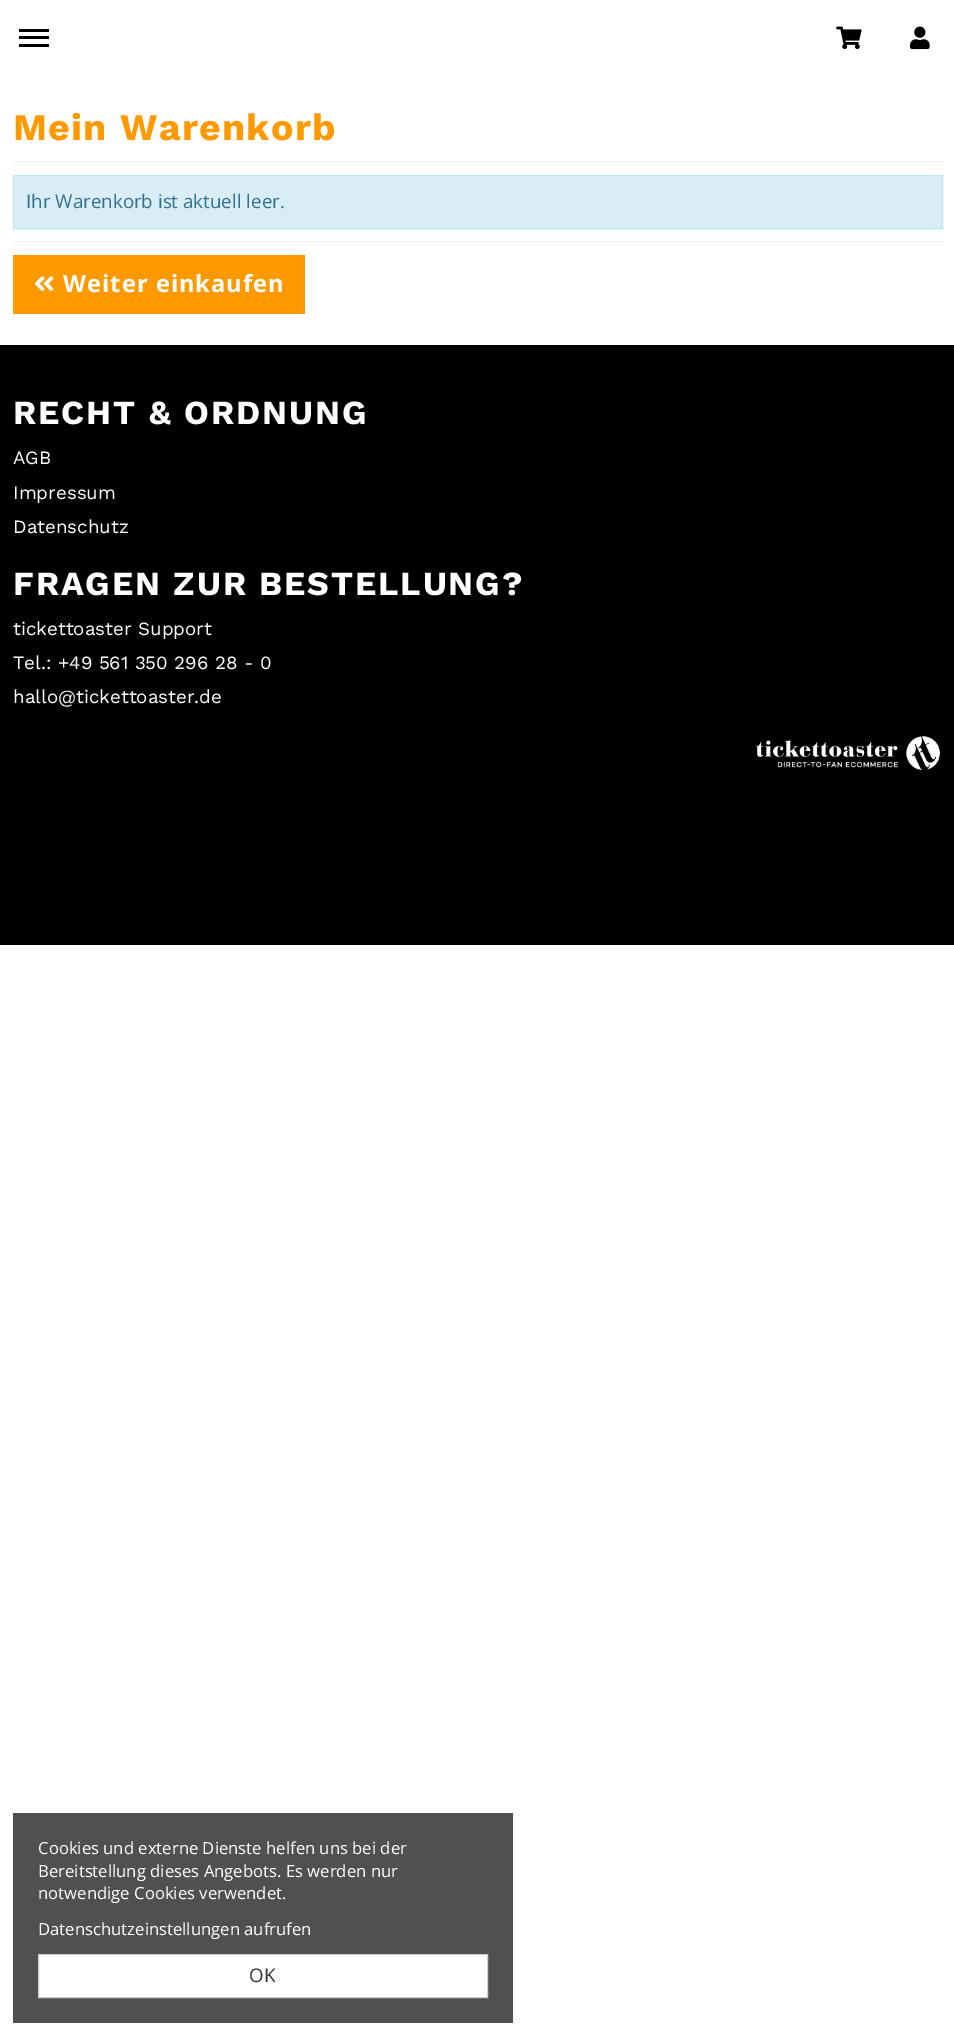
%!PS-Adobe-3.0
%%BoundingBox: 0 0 954 2035
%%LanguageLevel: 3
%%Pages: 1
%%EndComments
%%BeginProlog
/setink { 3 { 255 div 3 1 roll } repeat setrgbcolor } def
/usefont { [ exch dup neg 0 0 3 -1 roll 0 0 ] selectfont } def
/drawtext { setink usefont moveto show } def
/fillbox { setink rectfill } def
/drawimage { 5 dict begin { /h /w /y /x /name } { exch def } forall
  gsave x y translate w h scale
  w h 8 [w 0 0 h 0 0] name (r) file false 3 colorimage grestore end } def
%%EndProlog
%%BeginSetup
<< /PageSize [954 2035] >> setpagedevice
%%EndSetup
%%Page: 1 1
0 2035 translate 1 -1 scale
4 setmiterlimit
0 0 954 2035 255 255 255 fillbox
19 36 30 3 0 0 0 fillbox
19 29 30 3 0 0 0 fillbox
19 44 30 3 0 0 0 fillbox
(assets/img1.rgb) 836 26 26 23 drawimage
(assets/img2.rgb) 910 26 20 24 drawimage
/WorkSans-Bold 37.5 usefont
255 153 0 setink
13 140 moveto 1.25 0 (Mein Warenkorb) ashow
13 161 930 1 238 238 238 fillbox
217 237 247 setink
13.5 175.5 moveto 942.5 175.5 lineto 942.5 228.5 lineto 13.5 228.5 lineto closepath gsave fill grestore
188 232 241 setink
stroke
(Ihr Warenkorb ist aktuell leer.) 26 208 /OpenSans-Regular 18.75 49 112 143 drawtext
13 241 930 1 238 238 238 fillbox
13 255 292 59 255 153 0 fillbox
(assets/img3.rgb) 34 276 20 15 drawimage
/OpenSans-Bold 23.75 usefont
255 255 255 setink
63 292 moveto 1 0 (Weiter einkaufen) ashow
0 345 954 600 0 0 0 fillbox
/WorkSans-Bold 33.75 usefont
255 255 255 setink
13 424 moveto 1.9 0 (RECHT & ORDNUNG) ashow
(AGB) 13 464 /WorkSans-Regular 18.75 255 255 255 drawtext
(Impressum) 13 499 /WorkSans-Regular 18.75 255 255 255 drawtext
(Datenschutz) 13 533 /WorkSans-Regular 18.75 255 255 255 drawtext
/WorkSans-Bold 33.75 usefont
13 595 moveto 1.9 0 (FRAGEN ZUR BESTELLUNG?) ashow
(tickettoaster Support) 13 635 /WorkSans-Regular 18.75 255 255 255 drawtext
(Tel.: +49 561 350 296 28 - 0) 13 669 /WorkSans-Regular 18.75 255 255 255 drawtext
(hallo@tickettoaster.de) 13 703 /WorkSans-Regular 18.75 255 255 255 drawtext
(assets/img4.rgb) 756 736 184 34 drawimage
13 1813 500 210 80 80 80 fillbox
(Cookies und externe Dienste helfen uns bei der) 38 1854 /OpenSans-Regular 16.7 255 255 255 drawtext
(Bereitstellung dieses Angebots. Es werden nur) 38 1877 /OpenSans-Regular 16.7 255 255 255 drawtext
(notwendige Cookies verwendet.) 38 1899 /OpenSans-Regular 16.7 255 255 255 drawtext
(Datenschutzeinstellungen aufrufen) 38 1935 /OpenSans-Regular 16.7 255 255 255 drawtext
38.5 1954.5 moveto 487.5 1954.5 lineto 487.5 1997.5 lineto 38.5 1997.5 lineto closepath gsave fill grestore
204 204 204 setink
stroke
(OK) 249 1982 /OpenSans-Regular 18.75 51 51 51 drawtext
showpage
%%EOF
